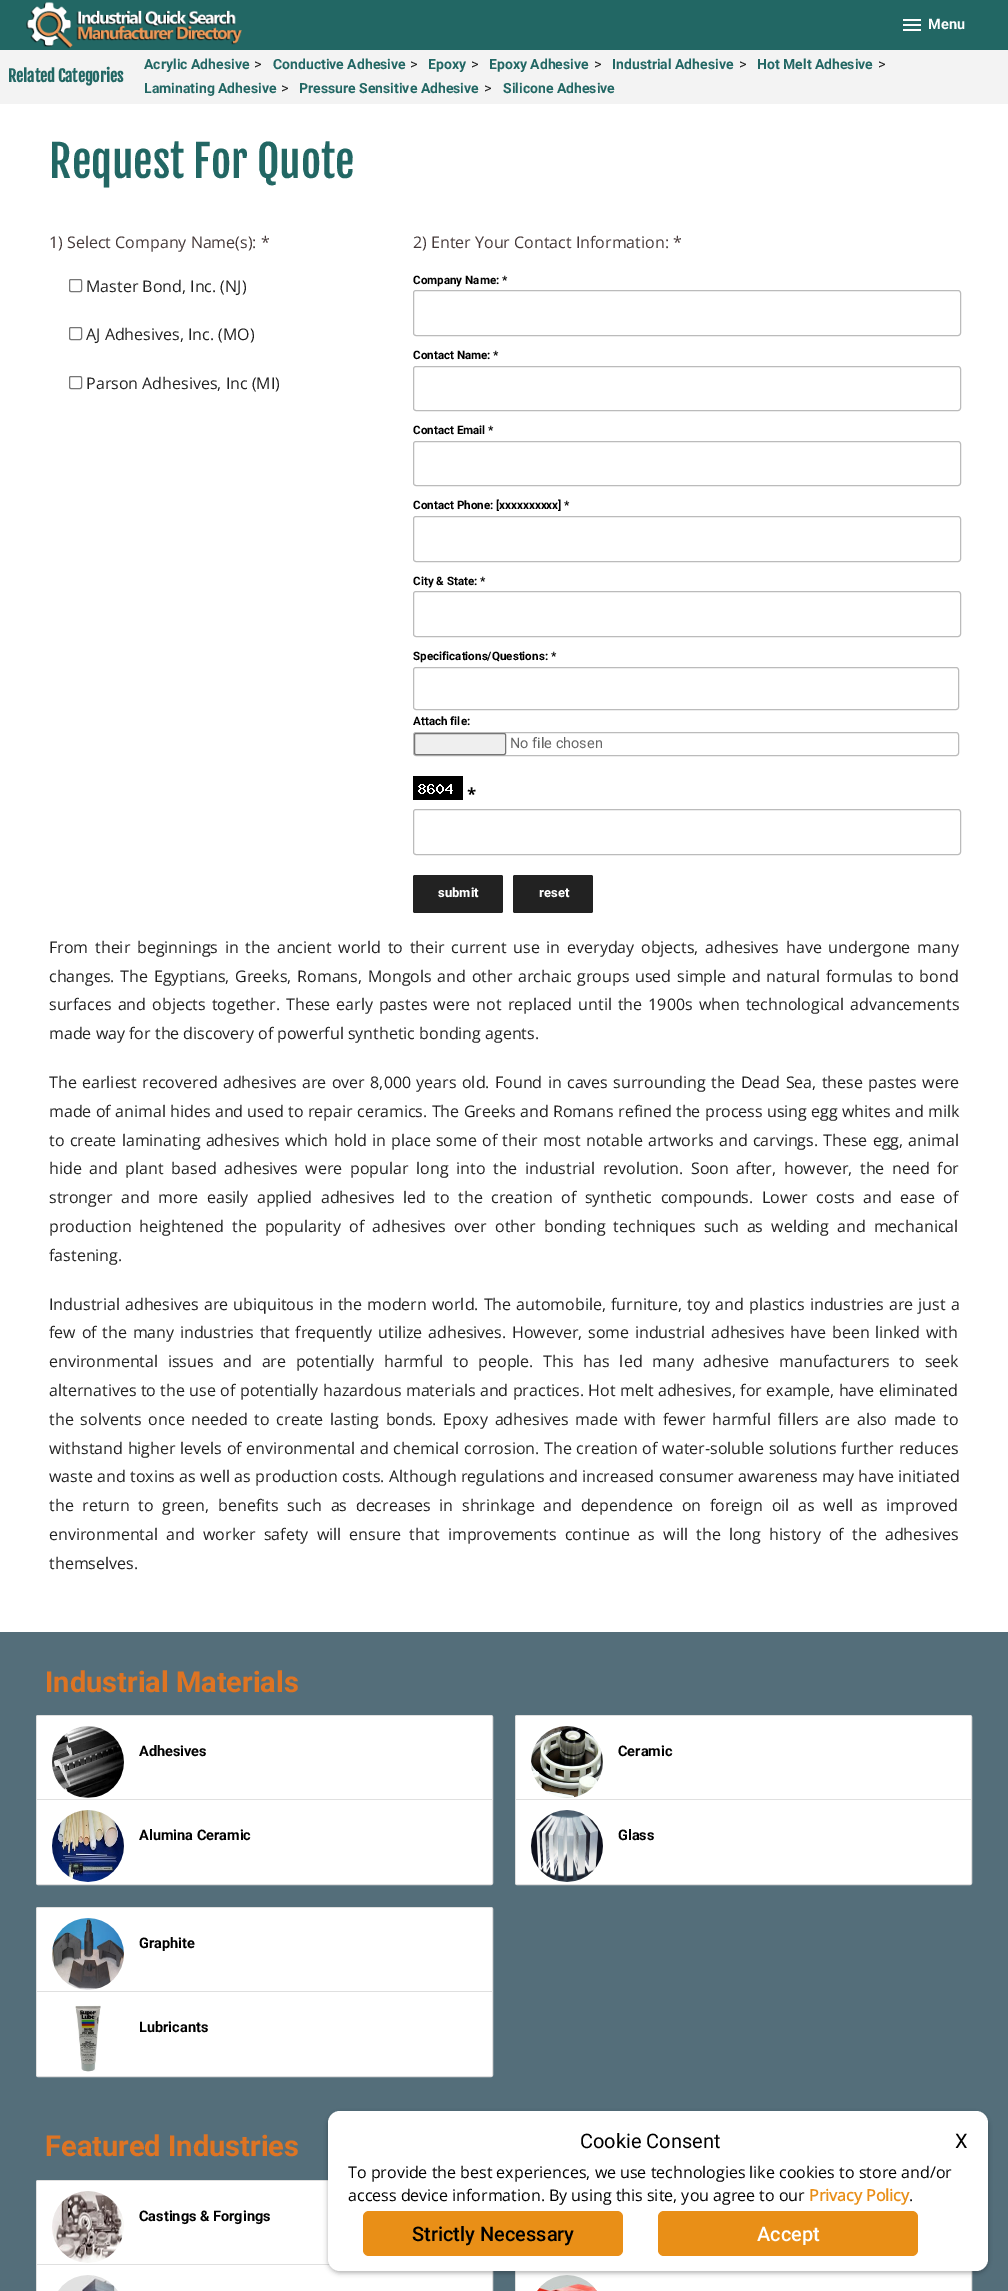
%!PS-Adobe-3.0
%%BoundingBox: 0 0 1008 2291
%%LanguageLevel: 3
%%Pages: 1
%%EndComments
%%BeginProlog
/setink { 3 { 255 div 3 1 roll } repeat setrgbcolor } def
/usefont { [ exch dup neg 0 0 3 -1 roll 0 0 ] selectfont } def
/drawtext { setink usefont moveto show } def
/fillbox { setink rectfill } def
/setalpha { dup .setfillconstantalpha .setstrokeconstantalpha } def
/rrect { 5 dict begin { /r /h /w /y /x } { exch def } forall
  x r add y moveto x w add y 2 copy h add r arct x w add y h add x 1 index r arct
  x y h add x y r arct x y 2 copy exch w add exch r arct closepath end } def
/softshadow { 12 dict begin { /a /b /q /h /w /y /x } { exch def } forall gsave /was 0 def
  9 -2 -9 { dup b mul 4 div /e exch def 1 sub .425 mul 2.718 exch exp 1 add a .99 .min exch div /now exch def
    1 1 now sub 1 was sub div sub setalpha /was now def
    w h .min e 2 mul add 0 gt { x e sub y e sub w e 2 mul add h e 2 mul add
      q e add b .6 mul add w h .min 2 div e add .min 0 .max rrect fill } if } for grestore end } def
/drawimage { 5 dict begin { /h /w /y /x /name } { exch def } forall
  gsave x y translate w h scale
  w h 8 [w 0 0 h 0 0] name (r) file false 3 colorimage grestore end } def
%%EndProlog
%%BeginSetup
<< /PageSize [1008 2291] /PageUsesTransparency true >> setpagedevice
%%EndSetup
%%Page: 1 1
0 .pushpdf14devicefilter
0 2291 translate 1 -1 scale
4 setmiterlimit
0 0 1008 2291 255 255 255 fillbox
0 0 1008 50 34 103 100 fillbox
(assets/img1.rgb) 26 2 216 47 drawimage
(assets/img2.rgb) 903 19 18 12 drawimage
(Menu) 928 29 /Roboto-Bold 14.5 255 255 255 drawtext
0 50 1008 54 243 243 243 fillbox
(Related Categories) 8 82 /FjallaOne-Bold 16 34 103 100 drawtext
(Acrylic Adhesive) 144 69 /Roboto-Bold 14 34 103 100 drawtext
(>) 254 69 /Roboto-Regular 14.5 33 33 33 drawtext
(Conductive Adhesive) 273 69 /Roboto-Bold 14 34 103 100 drawtext
(>) 410 69 /Roboto-Regular 14.5 33 33 33 drawtext
(Epoxy) 428 69 /Roboto-Bold 14 34 103 100 drawtext
(>) 471 69 /Roboto-Regular 14.5 33 33 33 drawtext
(Epoxy Adhesive) 489 69 /Roboto-Bold 14 34 103 100 drawtext
(>) 594 69 /Roboto-Regular 14.5 33 33 33 drawtext
(Industrial Adhesive) 612 69 /Roboto-Bold 14 34 103 100 drawtext
(>) 739 69 /Roboto-Regular 14.5 33 33 33 drawtext
(Hot Melt Adhesive) 757 69 /Roboto-Bold 14 34 103 100 drawtext
(>) 878 69 /Roboto-Regular 14.5 33 33 33 drawtext
(Laminating Adhesive) 144 93 /Roboto-Bold 14 34 103 100 drawtext
(>) 281 93 /Roboto-Regular 14.5 33 33 33 drawtext
(Pressure Sensitive Adhesive) 299 93 /Roboto-Bold 14 34 103 100 drawtext
(>) 484 93 /Roboto-Regular 14.5 33 33 33 drawtext
(Silicone Adhesive) 503 93 /Roboto-Bold 14 34 103 100 drawtext
(Request For Quote) 49 178 /FjallaOne-Regular 43.5 34 103 100 drawtext
(1\) Select Company Name\(s\): *) 49 248 /OpenSans-Regular 16 69 57 57 drawtext
118 118 118 setink
69.5 279.5 12 12 1.5 rrect stroke
(Master Bond, Inc. \(NJ\)) 86 292 /OpenSans-Regular 16 33 33 33 drawtext
118 118 118 setink
69.5 327.5 12 12 1.5 rrect stroke
(AJ Adhesives, Inc. \(MO\)) 86 340 /OpenSans-Regular 16 33 33 33 drawtext
118 118 118 setink
69.5 376.5 12 12 1.5 rrect stroke
(Parson Adhesives, Inc \(MI\)) 86 389 /OpenSans-Regular 16 33 33 33 drawtext
(2\) Enter Your Contact Information: *) 413 248 /OpenSans-Regular 16 69 57 57 drawtext
(Company Name: *) 413 284 /Roboto-Bold 11.6 0 0 0 drawtext
187 187 187 setink
413.5 290.5 547 45 2.5 rrect stroke
(Contact Name: *) 413 359 /Roboto-Bold 11.6 0 0 0 drawtext
187 187 187 setink
413.5 366.5 547 44 2.5 rrect stroke
(Contact Email *) 413 434 /Roboto-Bold 11.6 0 0 0 drawtext
187 187 187 setink
413.5 441.5 547 44 2.5 rrect stroke
(Contact Phone: [xxxxxxxxxx] *) 413 509 /Roboto-Bold 11.6 0 0 0 drawtext
187 187 187 setink
413.5 516.5 547 45 2.5 rrect stroke
(City & State: *) 413 585 /Roboto-Bold 11.6 0 0 0 drawtext
187 187 187 setink
413.5 591.5 547 45 2.5 rrect stroke
(Specifications/Questions: *) 413 660 /Roboto-Bold 11.6 0 0 0 drawtext
187 187 187 setink
413.5 667.5 545 42 2.5 rrect stroke
(Attach file:) 413 725 /Roboto-Bold 11.6 0 0 0 drawtext
187 187 187 setink
413.5 732.5 545 23 2.5 rrect stroke
239 239 239 setink
414.5 733.5 91 21 1.5 rrect gsave fill grestore
118 118 118 setink
stroke
(No file chosen) 510 748 /Roboto-Regular 14.5 102 102 102 drawtext
(assets/img3.rgb) 413 776 50 24 drawimage
(*) 467 800 /OpenSans-Bold 16 0 0 0 drawtext
187 187 187 setink
413.5 809.5 547 45 2.5 rrect stroke
34 34 34 setink
413 875 90 38 2 rrect fill
(submit) 438 897 /Roboto-ExtraBold 13 255 255 255 drawtext
34 34 34 setink
513 875 80 38 2 rrect fill
(reset) 539 897 /Roboto-ExtraBold 13 255 255 255 drawtext
/OpenSans-Regular 16 usefont
33 33 33 setink
49 953 moveto 2.6 0 32 (From their beginnings in the ancient world to their current use in everyday objects, adhesives have undergone many) widthshow
49 982 moveto 1.6 0 32 (changes. The Egyptians, Greeks, Romans, Mongols and other archaic groups used simple and natural formulas to bond) widthshow
49 1010 moveto 1.9 0 32 (surfaces and objects together. These early pastes were not replaced until the 1900s when technological advancements) widthshow
(made way for the discovery of powerful synthetic bonding agents.) 49 1039 /OpenSans-Regular 16 33 33 33 drawtext
49 1088 moveto 1.25 0 32 (The earliest recovered adhesives are over 8,000 years old. Found in caves surrounding the Dead Sea, these pastes were) widthshow
49 1117 moveto 0.2 0 32 (made of animal hides and used to repair ceramics. The Greeks and Romans refined the process using egg whites and milk) widthshow
49 1146 moveto 1.1 0 32 (to create laminating adhesives which hold in place some of their most notable artworks and carvings. These egg, animal) widthshow
49 1174 moveto 3.5 0 32 (hide and plant based adhesives were popular long into the industrial revolution. Soon after, however, the need for) widthshow
49 1203 moveto 4.4 0 32 (stronger and more easily applied adhesives led to the creation of synthetic compounds. Lower costs and ease of) widthshow
49 1232 moveto 3.9 0 32 (production heightened the popularity of adhesives over other bonding techniques such as welding and mechanical) widthshow
(fastening.) 49 1261 /OpenSans-Regular 16 33 33 33 drawtext
49 1310 moveto 1 0 32 (Industrial adhesives are ubiquitous in the modern world. The automobile, furniture, toy and plastics industries are just a) widthshow
49 1338 moveto 1.6 0 32 (few of the many industries that frequently utilize adhesives. However, some industrial adhesives have been linked with) widthshow
49 1367 moveto 5.6 0 32 (environmental issues and are potentially harmful to people. This has led many adhesive manufacturers to seek) widthshow
49 1396 moveto 0.3 0 32 (alternatives to the use of potentially hazardous materials and practices. Hot melt adhesives, for example, have eliminated) widthshow
49 1425 moveto 2.6 0 32 (the solvents once needed to create lasting bonds. Epoxy adhesives made with fewer harmful fillers are also made to) widthshow
49 1454 moveto 0.6 0 32 (withstand higher levels of environmental and chemical corrosion. The creation of water-soluble solutions further reduces) widthshow
49 1482 moveto 0.25 0 32 (waste and toxins as well as production costs. Although regulations and increased consumer awareness may have initiated) widthshow
49 1511 moveto 4.5 0 32 (the return to green, benefits such as decreases in shrinkage and dependence on foreign oil as well as improved) widthshow
49 1540 moveto 4.1 0 32 (environmental and worker safety will ensure that improvements continue as will the long history of the adhesives) widthshow
(themselves.) 49 1569 /OpenSans-Regular 16 33 33 33 drawtext
0 1632 1008 659 84 110 122 fillbox
(Industrial Materials) 45 1692 /Roboto-Bold 29 222 116 35 drawtext
224 224 224 setink
36.5 1715.5 456 169 1.5 rrect stroke
255 255 255 setink
38 1716 moveto 491 1716 lineto 491.5 1716 492 1716.5 492 1717 curveto 492 1800 lineto 37 1800 lineto 37 1717 lineto 37 1716.5 37.5 1716 38 1716 curveto closepath fill
37 1799 455 1 224 224 224 fillbox
(assets/img4.rgb) 52 1726 72 72 drawimage
(Adhesives) 139 1756 /Roboto-Bold 14.5 0 0 0 drawtext
255 255 255 setink
37 1800 moveto 492 1800 lineto 492 1883 lineto 492 1883.5 491.5 1884 491 1884 curveto 38 1884 lineto 37.5 1884 37 1883.5 37 1883 curveto closepath fill
(assets/img5.rgb) 52 1810 72 72 drawimage
(Alumina Ceramic) 139 1840 /Roboto-Bold 14.5 0 0 0 drawtext
224 224 224 setink
515.5 1715.5 456 169 1.5 rrect stroke
255 255 255 setink
517 1716 moveto 970 1716 lineto 970.5 1716 971 1716.5 971 1717 curveto 971 1800 lineto 516 1800 lineto 516 1717 lineto 516 1716.5 516.5 1716 517 1716 curveto closepath fill
516 1799 455 1 224 224 224 fillbox
(assets/img6.rgb) 531 1726 72 72 drawimage
(Ceramic) 618 1756 /Roboto-Bold 14.5 0 0 0 drawtext
255 255 255 setink
516 1800 moveto 971 1800 lineto 971 1883 lineto 971 1883.5 970.5 1884 970 1884 curveto 517 1884 lineto 516.5 1884 516 1883.5 516 1883 curveto closepath fill
(assets/img7.rgb) 531 1810 72 72 drawimage
(Glass) 618 1840 /Roboto-Bold 14.5 0 0 0 drawtext
224 224 224 setink
36.5 1907.5 456 169 1.5 rrect stroke
255 255 255 setink
38 1908 moveto 491 1908 lineto 491.5 1908 492 1908.5 492 1909 curveto 492 1992 lineto 37 1992 lineto 37 1909 lineto 37 1908.5 37.5 1908 38 1908 curveto closepath fill
37 1991 455 1 224 224 224 fillbox
(assets/img8.rgb) 52 1918 72 72 drawimage
(Graphite) 139 1948 /Roboto-Bold 14.5 0 0 0 drawtext
255 255 255 setink
37 1992 moveto 492 1992 lineto 492 2075 lineto 492 2075.5 491.5 2076 491 2076 curveto 38 2076 lineto 37.5 2076 37 2075.5 37 2075 curveto closepath fill
(assets/img9.rgb) 75 2004 26 68 drawimage
(Lubricants) 139 2032 /Roboto-Bold 14.5 0 0 0 drawtext
(Featured Industries) 45 2156 /Roboto-Bold 29 222 116 35 drawtext
224 224 224 setink
36.5 2180.5 456 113 1.5 rrect stroke
255 255 255 setink
38 2181 moveto 491 2181 lineto 491.5 2181 492 2181.5 492 2182 curveto 492 2265 lineto 37 2265 lineto 37 2182 lineto 37 2181.5 37.5 2181 38 2181 curveto closepath fill
37 2264 293 1 224 224 224 fillbox
(assets/img10.rgb) 52 2191 72 72 drawimage
(Castings & Forgings) 139 2221 /Roboto-Bold 14.5 0 0 0 drawtext
37 2265 455 26 255 255 255 fillbox
(assets/img11.rgb) 58 2275 60 16 drawimage
224 224 224 setink
515.5 2180.5 456 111 rectstroke
516 2271 455 20 255 255 255 fillbox
(assets/img12.rgb) 537 2275 60 16 drawimage
0 0 0 setink
328 2113 660 160 12 2.5 0.3 softshadow
255 255 255 setink
328 2111 660 160 12 rrect fill
(Cookie Consent) 580 2148 /Roboto-Regular 20 0 0 0 drawtext
(X) 955 2148 /Roboto-Regular 20 0 0 0 drawtext
(To provide the best experiences, we use technologies like cookies to store and/or) 348 2178 /OpenSans-Regular 16 0 0 0 drawtext
(access device information. By using this site, you agree to our) 348 2201 /OpenSans-Regular 16 0 0 0 drawtext
(Privacy Policy) 809 2201 /OpenSans-Bold 16 233 143 23 drawtext
(.) 909 2201 /OpenSans-Regular 16 0 0 0 drawtext
233 143 23 setink
363 2211 260 45 6 rrect fill
(Strictly Necessary) 412 2241 /Roboto-Medium 20 0 0 0 drawtext
233 143 23 setink
658 2211 260 45 6 rrect fill
(Accept) 757 2241 /Roboto-Medium 20 255 255 255 drawtext
.poppdf14devicefilter showpage
%%EOF
